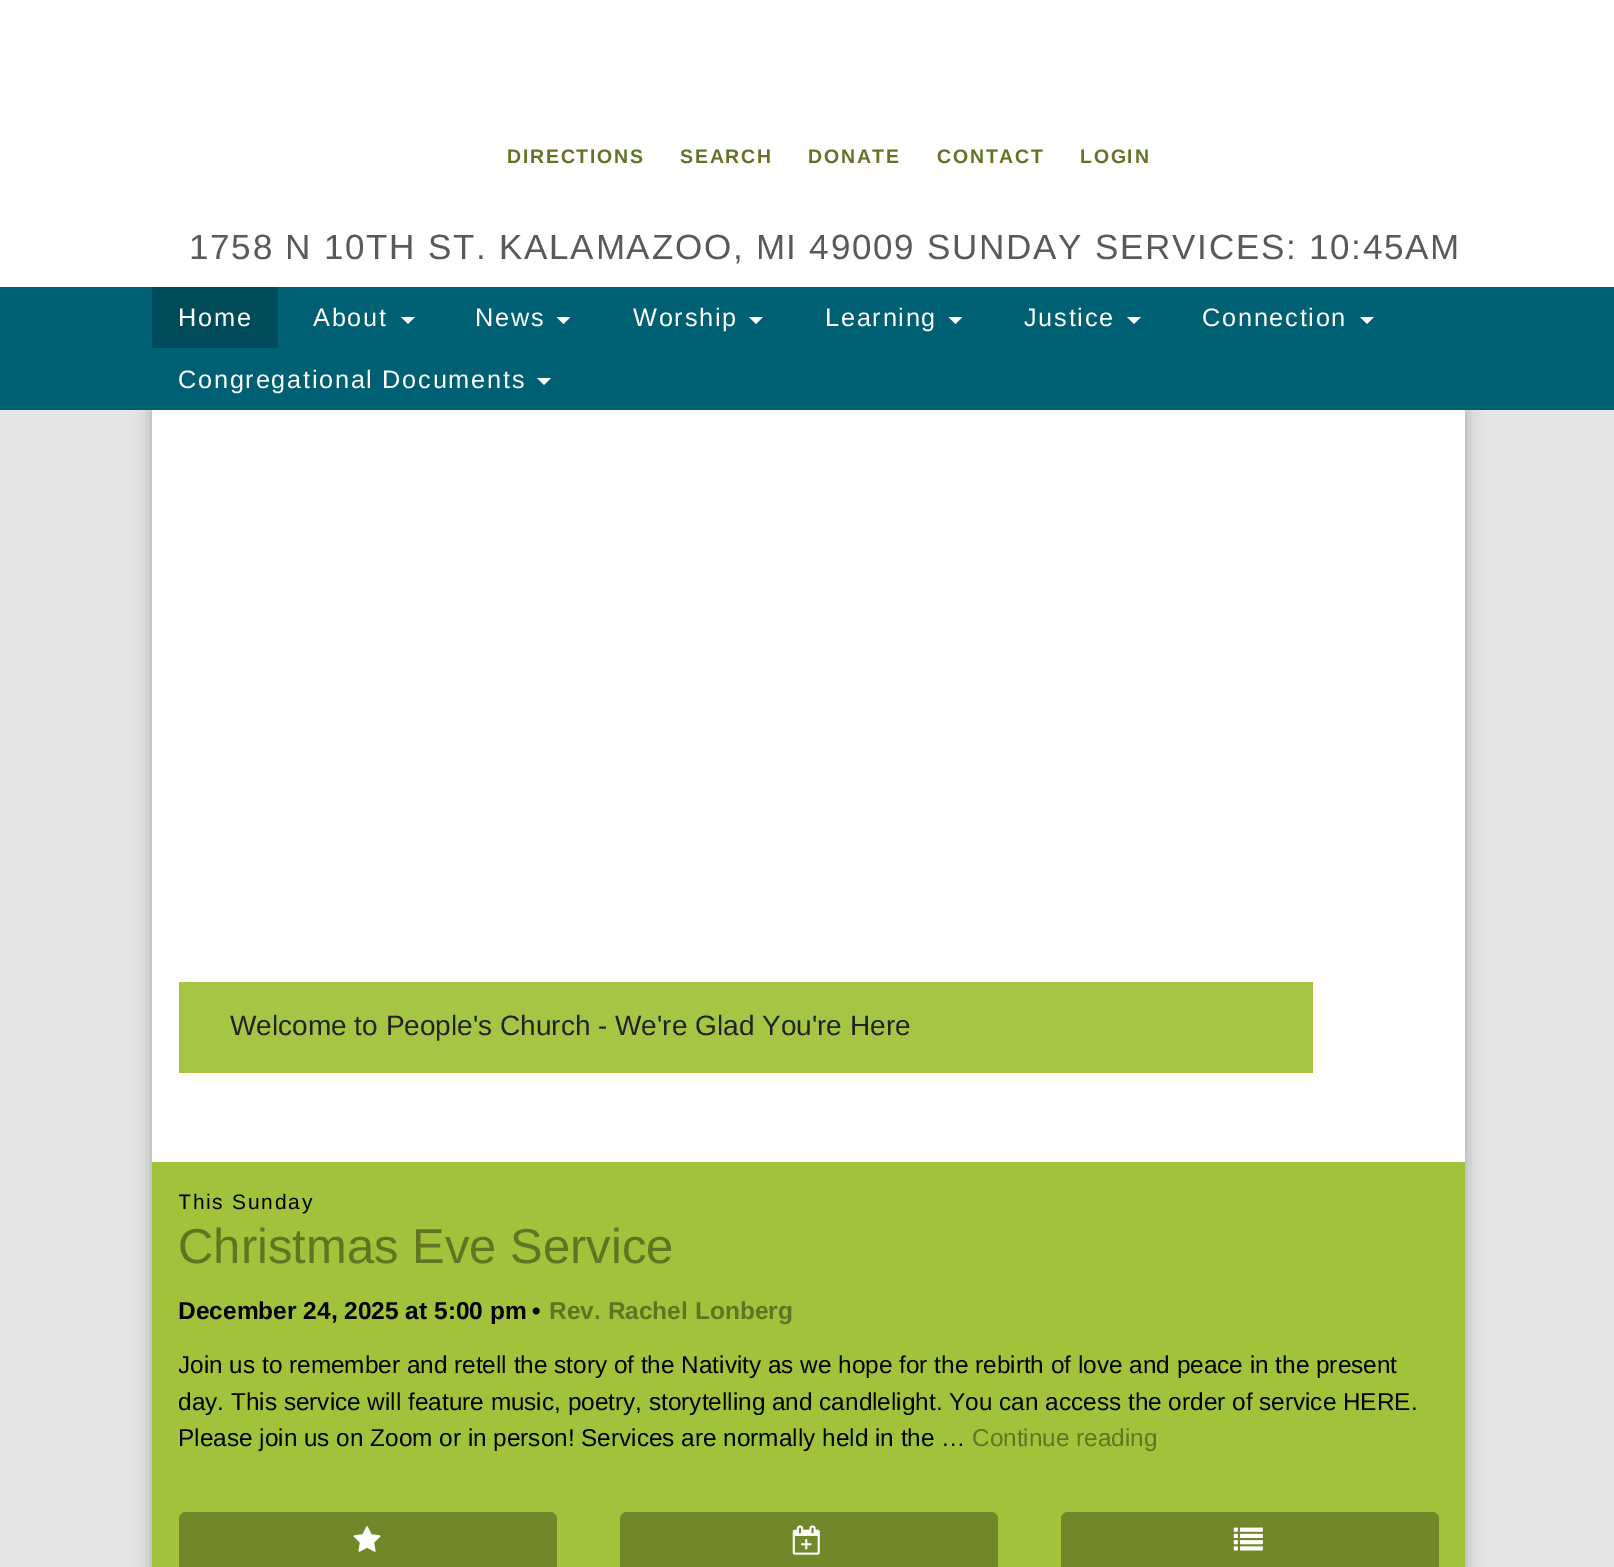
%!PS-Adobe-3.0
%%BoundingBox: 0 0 1614 1567
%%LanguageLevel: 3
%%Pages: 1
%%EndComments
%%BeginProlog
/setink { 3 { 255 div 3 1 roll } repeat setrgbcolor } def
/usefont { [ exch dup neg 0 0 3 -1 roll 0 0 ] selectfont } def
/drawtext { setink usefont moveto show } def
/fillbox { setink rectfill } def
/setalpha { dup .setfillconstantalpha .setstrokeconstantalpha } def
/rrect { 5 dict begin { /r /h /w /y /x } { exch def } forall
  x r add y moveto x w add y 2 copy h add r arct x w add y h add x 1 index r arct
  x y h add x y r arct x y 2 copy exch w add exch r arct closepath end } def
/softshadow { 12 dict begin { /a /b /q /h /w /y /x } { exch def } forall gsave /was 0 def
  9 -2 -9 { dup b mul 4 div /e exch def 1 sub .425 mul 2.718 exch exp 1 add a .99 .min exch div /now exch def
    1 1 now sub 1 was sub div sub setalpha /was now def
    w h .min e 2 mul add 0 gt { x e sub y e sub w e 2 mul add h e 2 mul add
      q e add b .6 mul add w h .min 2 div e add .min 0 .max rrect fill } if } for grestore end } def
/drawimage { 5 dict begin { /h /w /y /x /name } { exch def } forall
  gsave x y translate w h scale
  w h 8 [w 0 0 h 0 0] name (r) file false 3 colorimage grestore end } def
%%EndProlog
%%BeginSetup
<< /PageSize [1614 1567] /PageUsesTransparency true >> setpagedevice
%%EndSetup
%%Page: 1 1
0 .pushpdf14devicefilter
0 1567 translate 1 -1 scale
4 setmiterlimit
0 0 1614 1567 229 229 229 fillbox
0 0 1614 287 255 255 255 fillbox
/LiberationSans-Bold 19.5 usefont
96 117 35 setink
507 163 moveto 1.75 0 (DIRECTIONS) ashow
680 163 moveto 1.75 0 (SEARCH) ashow
808 163 moveto 1.75 0 (DONATE) ashow
937 163 moveto 1.75 0 (CONTACT) ashow
1080 163 moveto 1.75 0 (LOGIN) ashow
/LiberationSans-Regular 35 usefont
88 89 91 setink
189 259 moveto 1.75 0 (1758 N 10TH ST. KALAMAZOO, MI 49009 SUNDAY SERVICES: 10:45AM) ashow
0 0 0 setink
152 410 1313 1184 0 9 0.3 softshadow
0 287 1614 123 0 96 115 fillbox
152 287 126 61 0 75 90 fillbox
/LiberationSans-Regular 25.25 usefont
255 255 255 setink
178 326 moveto 1.75 0 (Home) ashow
313 326 moveto 1.75 0 (About) ashow
401 317 moveto 415 317 lineto 408 324 lineto closepath fill
475 326 moveto 1.75 0 (News) ashow
556.5 317 moveto 570.5 317 lineto 563.5 324 lineto closepath fill
633 326 moveto 1.75 0 (Worship) ashow
749 317 moveto 763 317 lineto 756 324 lineto closepath fill
825 326 moveto 1.75 0 (Learning) ashow
948.5 317 moveto 962.5 317 lineto 955.5 324 lineto closepath fill
1024 326 moveto 1.75 0 (Justice) ashow
1127 317 moveto 1141 317 lineto 1134 324 lineto closepath fill
1202 326 moveto 1.75 0 (Connection) ashow
1360 317 moveto 1374 317 lineto 1367 324 lineto closepath fill
178 388 moveto 1.75 0 (Congregational Documents) ashow
537 378 moveto 551 378 lineto 544 385 lineto closepath fill
152 410 1313 752 255 255 255 fillbox
179 982 1134 91 165 198 69 fillbox
(Welcome to People's Church - We're Glad You're Here) 230 1035 /LiberationSans-Regular 28 34 34 34 drawtext
152 1162 1313 405 160 195 59 fillbox
gsave
179 1162 1260 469 rectclip
/LiberationSans-Regular 21 usefont
0 0 0 setink
178 1209 moveto 1.75 0 (This Sunday) ashow
grestore
(Christmas Eve Service) 178 1263 /LiberationSans-Regular 49 96 117 35 drawtext
(December 24, 2025 at 5:00 pm) 178 1319 /LiberationSans-Bold 24.5 0 0 0 drawtext
(•) 532 1319 /LiberationSans-Bold 24.5 0 0 0 drawtext
(Rev. Rachel Lonberg) 549 1319 /LiberationSans-Bold 24.5 96 117 35 drawtext
gsave
179 1162 1260 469 rectclip
(Join us to remember and retell the story of the Nativity as we hope for the rebirth of love and peace in the present) 178 1373 /LiberationSans-Regular 24.35 0 0 0 drawtext
(day. This service will feature music, poetry, storytelling and candlelight. You can access the order of service HERE.) 178 1410 /LiberationSans-Regular 24.35 0 0 0 drawtext
grestore
(Please join us on Zoom or in person! Services are normally held in the …) 178 1446 /LiberationSans-Regular 24.35 0 0 0 drawtext
(Continue reading) 972 1446 /LiberationSans-Regular 24.35 96 117 35 drawtext
112 136 41 setink
179 1512 378 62 7 rrect fill
(assets/img1.rgb) 353 1526 28 26 drawimage
620 1512 378 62 7 rrect fill
(assets/img2.rgb) 792 1525 28 30 drawimage
1061 1512 378 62 7 rrect fill
(assets/img3.rgb) 1233 1527 30 24 drawimage
.poppdf14devicefilter showpage
%%EOF
